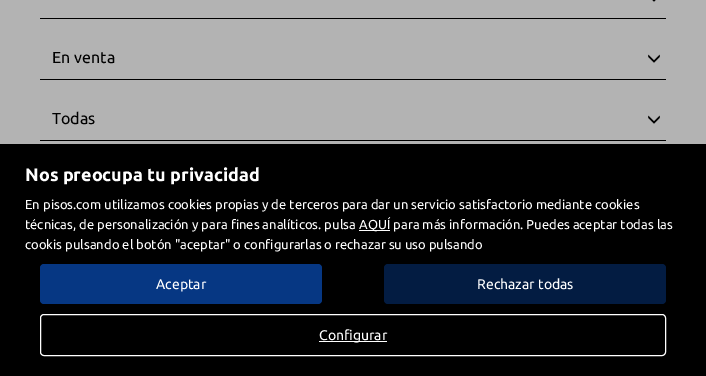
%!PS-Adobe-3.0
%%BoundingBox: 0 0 706 376
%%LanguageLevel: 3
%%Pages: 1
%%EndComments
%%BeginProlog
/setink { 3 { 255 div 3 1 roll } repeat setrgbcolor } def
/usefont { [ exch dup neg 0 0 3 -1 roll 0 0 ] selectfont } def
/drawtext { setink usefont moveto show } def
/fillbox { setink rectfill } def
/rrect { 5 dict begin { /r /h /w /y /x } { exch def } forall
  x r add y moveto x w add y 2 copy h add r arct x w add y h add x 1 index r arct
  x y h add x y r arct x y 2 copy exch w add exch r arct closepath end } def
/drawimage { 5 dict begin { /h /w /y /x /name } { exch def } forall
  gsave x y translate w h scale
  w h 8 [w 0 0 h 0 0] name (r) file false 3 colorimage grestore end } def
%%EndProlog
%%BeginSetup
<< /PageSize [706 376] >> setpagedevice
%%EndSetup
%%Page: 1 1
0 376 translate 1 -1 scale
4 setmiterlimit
0 0 706 376 179 179 179 fillbox
40 18 626 1 0 0 0 fillbox
(assets/img1.rgb) 652 0 4 2 drawimage
40 79 626 1 0 0 0 fillbox
(En venta) 52 63 /Ubuntu-Regular 16 0 0 0 drawtext
(assets/img2.rgb) 648 54 12 9 drawimage
40 140 626 1 0 0 0 fillbox
(Todas) 52 124 /Ubuntu-Regular 16 0 0 0 drawtext
(assets/img2.rgb) 648 115 12 9 drawimage
0 144 706 232 0 0 0 fillbox
(Nos preocupa tu privacidad) 25 181 /Ubuntu-Bold 18 255 255 255 drawtext
(En pisos.com utilizamos cookies propias y de terceros para dar un servicio satisfactorio mediante cookies) 25 209 /Ubuntu-Regular 13 255 255 255 drawtext
(técnicas, de personalización y para fines analíticos. pulsa) 25 229 /Ubuntu-Regular 13 255 255 255 drawtext
359 230 31 1 255 255 255 fillbox
(AQUÍ para más información. Puedes aceptar todas las) 359 229 /Ubuntu-Regular 13 255 255 255 drawtext
(cookis pulsando el botón "aceptar" o configurarlas o rechazar su uso pulsando) 25 249 /Ubuntu-Regular 13 255 255 255 drawtext
6 55 131 setink
40 264 282 40 4 rrect fill
(Aceptar) 156 289 /Ubuntu-Regular 14 255 255 255 drawtext
3 28 66 setink
384 264 282 40 4 rrect fill
(Rechazar todas) 477 289 /Ubuntu-Regular 14 255 255 255 drawtext
40.5 314.5 625 41 3.5 rrect stroke
319 341 68 1 255 255 255 fillbox
(Configurar) 319 340 /Ubuntu-Regular 14 255 255 255 drawtext
showpage
%%EOF
